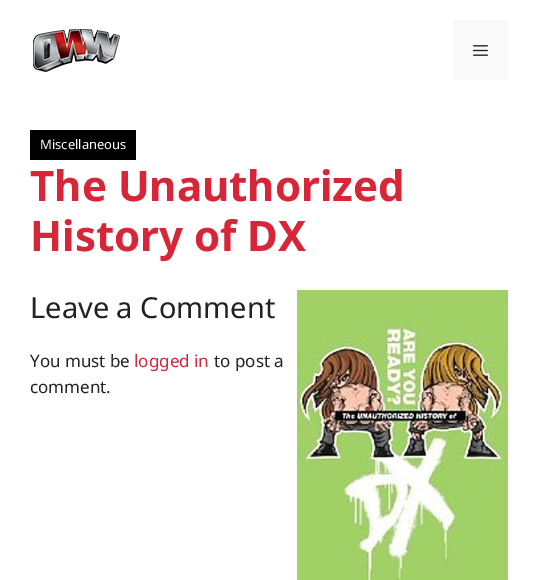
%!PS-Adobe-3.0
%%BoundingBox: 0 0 538 580
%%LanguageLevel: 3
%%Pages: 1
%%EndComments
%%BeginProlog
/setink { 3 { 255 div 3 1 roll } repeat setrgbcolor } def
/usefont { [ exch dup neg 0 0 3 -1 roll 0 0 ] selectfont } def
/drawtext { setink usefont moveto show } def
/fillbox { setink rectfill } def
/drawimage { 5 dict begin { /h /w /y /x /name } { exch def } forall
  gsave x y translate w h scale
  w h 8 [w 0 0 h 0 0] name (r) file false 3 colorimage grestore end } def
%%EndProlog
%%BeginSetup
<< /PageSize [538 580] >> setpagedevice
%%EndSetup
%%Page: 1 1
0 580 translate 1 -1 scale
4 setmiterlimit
0 0 538 580 255 255 255 fillbox
(assets/img1.rgb) 33 29 87 43 drawimage
453 20 55 60 250 250 250 fillbox
(assets/img2.rgb) 473 45 15 11 drawimage
30 130 106 30 0 0 0 fillbox
(Miscellaneous) 40 149 /NotoSans-Regular 13 255 255 255 drawtext
(The Unauthorized) 30 201 /NotoSans-Bold 42 215 38 56 drawtext
(History of DX) 30 251 /NotoSans-Bold 42 215 38 56 drawtext
(assets/img3.rgb) 297 290 211 290 drawimage
(Leave a Comment) 30 318 /NotoSans-Regular 29 34 34 34 drawtext
(You must be) 30 367 /NotoSans-Regular 17 34 34 34 drawtext
(logged in) 134 367 /NotoSans-Regular 17 215 38 56 drawtext
(to post a) 214 367 /NotoSans-Regular 17 34 34 34 drawtext
(comment.) 30 393 /NotoSans-Regular 17 34 34 34 drawtext
showpage
%%EOF
